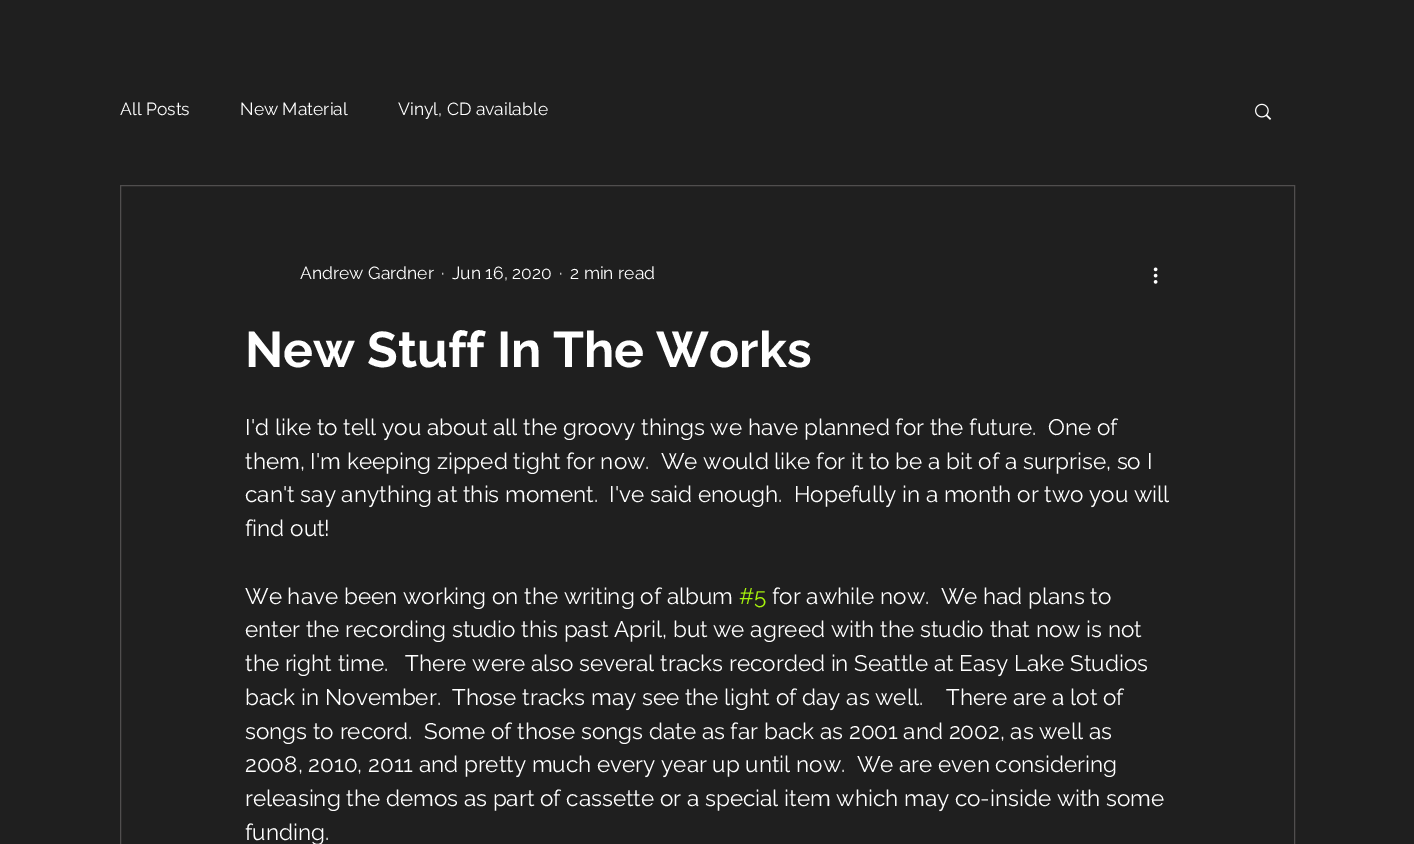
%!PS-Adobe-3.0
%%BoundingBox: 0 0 1414 844
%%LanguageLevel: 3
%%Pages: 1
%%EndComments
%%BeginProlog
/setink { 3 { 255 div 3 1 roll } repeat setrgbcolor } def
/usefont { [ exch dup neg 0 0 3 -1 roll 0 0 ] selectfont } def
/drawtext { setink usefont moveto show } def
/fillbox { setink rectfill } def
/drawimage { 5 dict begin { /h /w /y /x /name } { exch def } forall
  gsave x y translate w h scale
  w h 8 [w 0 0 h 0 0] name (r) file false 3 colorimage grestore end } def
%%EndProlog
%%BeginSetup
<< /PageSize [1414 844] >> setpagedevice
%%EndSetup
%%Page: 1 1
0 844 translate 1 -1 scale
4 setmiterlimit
0 0 1414 844 31 31 31 fillbox
(All Posts) 120 115 /Raleway-Regular 17.5 255 255 255 drawtext
(New Material) 240 115 /Raleway-Regular 17.5 255 255 255 drawtext
(Vinyl, CD available) 398 115 /Raleway-Regular 17.5 255 255 255 drawtext
(assets/img1.rgb) 1255 103 17 17 drawimage
80 78 78 setink
120.5 185.5 1174 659 rectstroke
(Andrew Gardner) 300 279 /Raleway-Regular 17.5 255 255 255 drawtext
(·) 441 279 /Raleway-Regular 17.5 255 255 255 drawtext
(Jun 16, 2020) 452 279 /Raleway-Regular 17.5 255 255 255 drawtext
(·) 559 279 /Raleway-Regular 17.5 255 255 255 drawtext
(2 min read) 570 279 /Raleway-Regular 17.5 255 255 255 drawtext
(assets/img2.rgb) 1153 267 5 17 drawimage
(New Stuff In The Works) 245 367 /Raleway-Bold 50 255 255 255 drawtext
(I'd like to tell you about all the groovy things we have planned for the future.  One of) 245 435 /Raleway-Regular 22.5 255 255 255 drawtext
(them, I'm keeping zipped tight for now.  We would like for it to be a bit of a surprise, so I) 245 469 /Raleway-Regular 22.5 255 255 255 drawtext
(can't say anything at this moment.  I've said enough.  Hopefully in a month or two you will) 245 502 /Raleway-Regular 22.5 255 255 255 drawtext
(find out!) 245 536 /Raleway-Regular 22.5 255 255 255 drawtext
(We have been working on the writing of album) 245 604 /Raleway-Regular 22.5 255 255 255 drawtext
(#5) 739 604 /Raleway-Regular 22.5 166 242 12 drawtext
(for awhile now.  We had plans to) 772 604 /Raleway-Regular 22.5 255 255 255 drawtext
(enter the recording studio this past April, but we agreed with the studio that now is not) 245 637 /Raleway-Regular 22.5 255 255 255 drawtext
(the right time.   There were also several tracks recorded in Seattle at Easy Lake Studios) 245 671 /Raleway-Regular 22.5 255 255 255 drawtext
(back in November.  Those tracks may see the light of day as well.    There are a lot of) 245 705 /Raleway-Regular 22.5 255 255 255 drawtext
(songs to record.  Some of those songs date as far back as 2001 and 2002, as well as) 245 739 /Raleway-Regular 22.5 255 255 255 drawtext
(2008, 2010, 2011 and pretty much every year up until now.  We are even considering) 245 772 /Raleway-Regular 22.5 255 255 255 drawtext
(releasing the demos as part of cassette or a special item which may co-inside with some) 245 806 /Raleway-Regular 22.5 255 255 255 drawtext
(funding.) 245 840 /Raleway-Regular 22.5 255 255 255 drawtext
showpage
%%EOF
